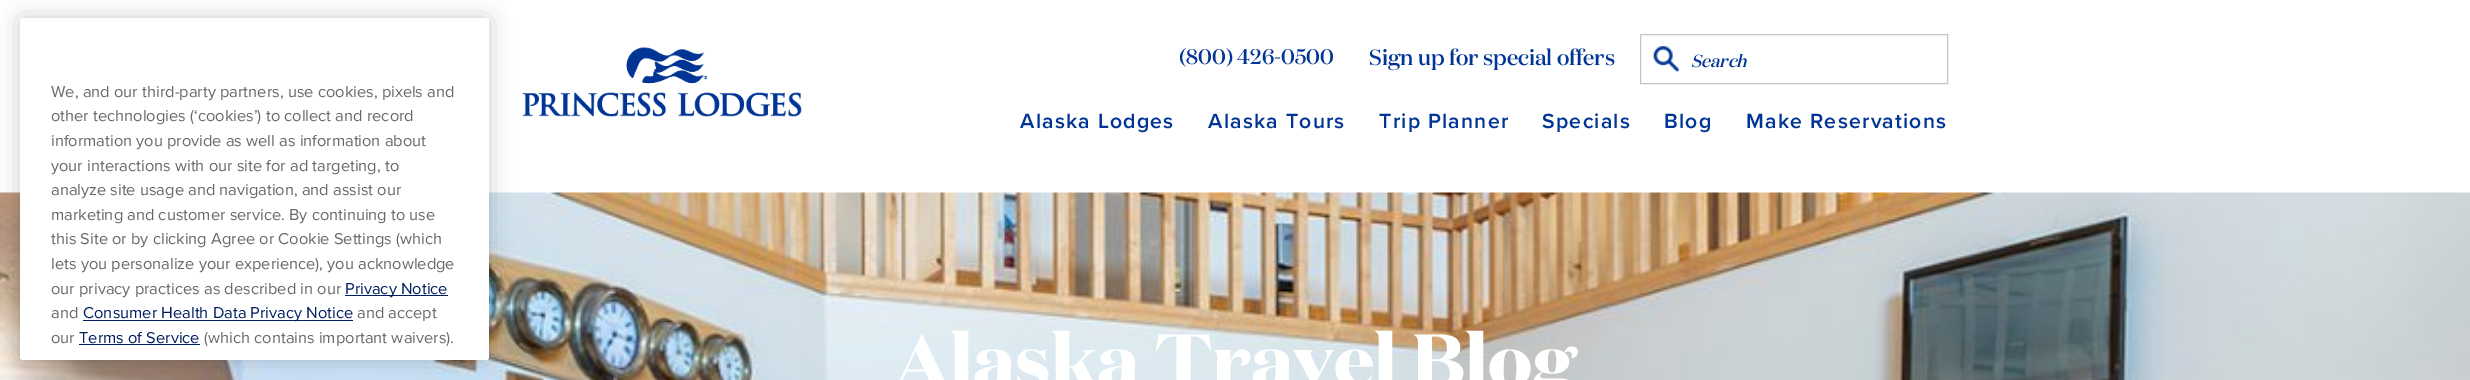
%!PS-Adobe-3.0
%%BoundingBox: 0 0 2470 380
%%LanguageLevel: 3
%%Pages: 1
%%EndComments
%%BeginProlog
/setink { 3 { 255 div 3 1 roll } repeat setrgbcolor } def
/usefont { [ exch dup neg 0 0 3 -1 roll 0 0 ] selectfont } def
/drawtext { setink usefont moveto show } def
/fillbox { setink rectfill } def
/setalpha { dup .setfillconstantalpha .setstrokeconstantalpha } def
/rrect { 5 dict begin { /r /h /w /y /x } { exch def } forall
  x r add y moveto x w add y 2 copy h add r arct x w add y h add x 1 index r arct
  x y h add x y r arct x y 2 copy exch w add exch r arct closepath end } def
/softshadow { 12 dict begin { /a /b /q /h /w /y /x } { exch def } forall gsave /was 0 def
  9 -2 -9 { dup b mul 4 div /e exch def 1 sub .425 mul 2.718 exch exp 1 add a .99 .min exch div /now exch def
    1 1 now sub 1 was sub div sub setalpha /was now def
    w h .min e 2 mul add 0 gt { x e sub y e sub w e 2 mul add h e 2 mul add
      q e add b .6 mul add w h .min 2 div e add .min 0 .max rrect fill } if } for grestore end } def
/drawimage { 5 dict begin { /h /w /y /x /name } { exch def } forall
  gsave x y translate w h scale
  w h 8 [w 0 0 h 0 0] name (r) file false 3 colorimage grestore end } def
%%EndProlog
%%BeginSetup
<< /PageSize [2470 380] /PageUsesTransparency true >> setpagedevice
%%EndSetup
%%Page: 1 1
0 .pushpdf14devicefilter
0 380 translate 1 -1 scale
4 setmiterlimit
0 0 2470 380 255 255 255 fillbox
(assets/img1.rgb) 522 47 280 70 drawimage
(assets/img3.rgb) 0 192 2470 188 drawimage
0 0 0 setink
20 18 469 342 3 11 0.2 softshadow
255 255 255 setink
20 18 469 342 3 rrect fill
(We, and our third-party partners, use cookies, pixels and) 51 97 /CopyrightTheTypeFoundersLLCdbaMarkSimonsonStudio-Regular 16.4 105 105 105 drawtext
(other technologies \(‘cookies’\) to collect and record) 51 121 /CopyrightTheTypeFoundersLLCdbaMarkSimonsonStudio-Regular 16.4 105 105 105 drawtext
(information you provide as well as information about) 51 146 /CopyrightTheTypeFoundersLLCdbaMarkSimonsonStudio-Regular 16.4 105 105 105 drawtext
(your interactions with our site for ad targeting, to) 51 171 /CopyrightTheTypeFoundersLLCdbaMarkSimonsonStudio-Regular 16.4 105 105 105 drawtext
(analyze site usage and navigation, and assist our) 51 195 /CopyrightTheTypeFoundersLLCdbaMarkSimonsonStudio-Regular 16.4 105 105 105 drawtext
(marketing and customer service. By continuing to use) 51 220 /CopyrightTheTypeFoundersLLCdbaMarkSimonsonStudio-Regular 16.4 105 105 105 drawtext
(this Site or by clicking Agree or Cookie Settings \(which) 51 244 /CopyrightTheTypeFoundersLLCdbaMarkSimonsonStudio-Regular 16.4 105 105 105 drawtext
(lets you personalize your experience\), you acknowledge) 51 269 /CopyrightTheTypeFoundersLLCdbaMarkSimonsonStudio-Regular 16.4 105 105 105 drawtext
(our privacy practices as described in our) 51 294 /CopyrightTheTypeFoundersLLCdbaMarkSimonsonStudio-Regular 16.4 105 105 105 drawtext
345 295 103 1 0 30 97 fillbox
(Privacy Notice) 345 294 /CopyrightTheTypeFoundersLLCdbaMarkSimonsonStudio-Regular 16.4 0 30 97 drawtext
(and) 51 318 /CopyrightTheTypeFoundersLLCdbaMarkSimonsonStudio-Regular 16.4 105 105 105 drawtext
83 320 270 1 0 30 97 fillbox
(Consumer Health Data Privacy Notice) 83 318 /CopyrightTheTypeFoundersLLCdbaMarkSimonsonStudio-Regular 16.4 0 30 97 drawtext
(and accept) 357 318 /CopyrightTheTypeFoundersLLCdbaMarkSimonsonStudio-Regular 16.4 105 105 105 drawtext
(our) 51 343 /CopyrightTheTypeFoundersLLCdbaMarkSimonsonStudio-Regular 16.4 105 105 105 drawtext
(Terms of Service) 79 343 /CopyrightTheTypeFoundersLLCdbaMarkSimonsonStudio-Regular 16.4 0 30 97 drawtext
79 344 121 1 0 30 97 fillbox
(\(which contains important waivers\).) 204 343 /CopyrightTheTypeFoundersLLCdbaMarkSimonsonStudio-Regular 16.4 105 105 105 drawtext
(\(800\) 426-0500) 1179 64 /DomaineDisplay-Medium 21.25 0 53 149 drawtext
(Sign up for special offers) 1369 65 /DomaineDisplay-Medium 22 0 53 149 drawtext
196 196 196 setink
1640.5 34.5 307 49 rectstroke
(assets/img2.rgb) 1653 46 26 26 drawimage
(Search) 1691 67 /DomaineDisplay-MediumItalic 17.5 0 53 149 drawtext
/CopyrightTheTypeFoundersLLCdbaMarkSimonsonStudio-SemiBold 21.25 usefont
1020 128 moveto 1.25 0 (Alaska Lodges) ashow
1208 128 moveto 1.25 0 (Alaska Tours) ashow
1379 128 moveto 1.25 0 (Trip Planner) ashow
1542 128 moveto 1.25 0 (Specials) ashow
1664 128 moveto 1.25 0 (Blog) ashow
1746 128 moveto 1.25 0 (Make Reservations) ashow
(Alaska Travel Blog) 894 387 /DomaineDisplay-Bold 75 255 255 255 drawtext
.poppdf14devicefilter showpage
%%EOF
